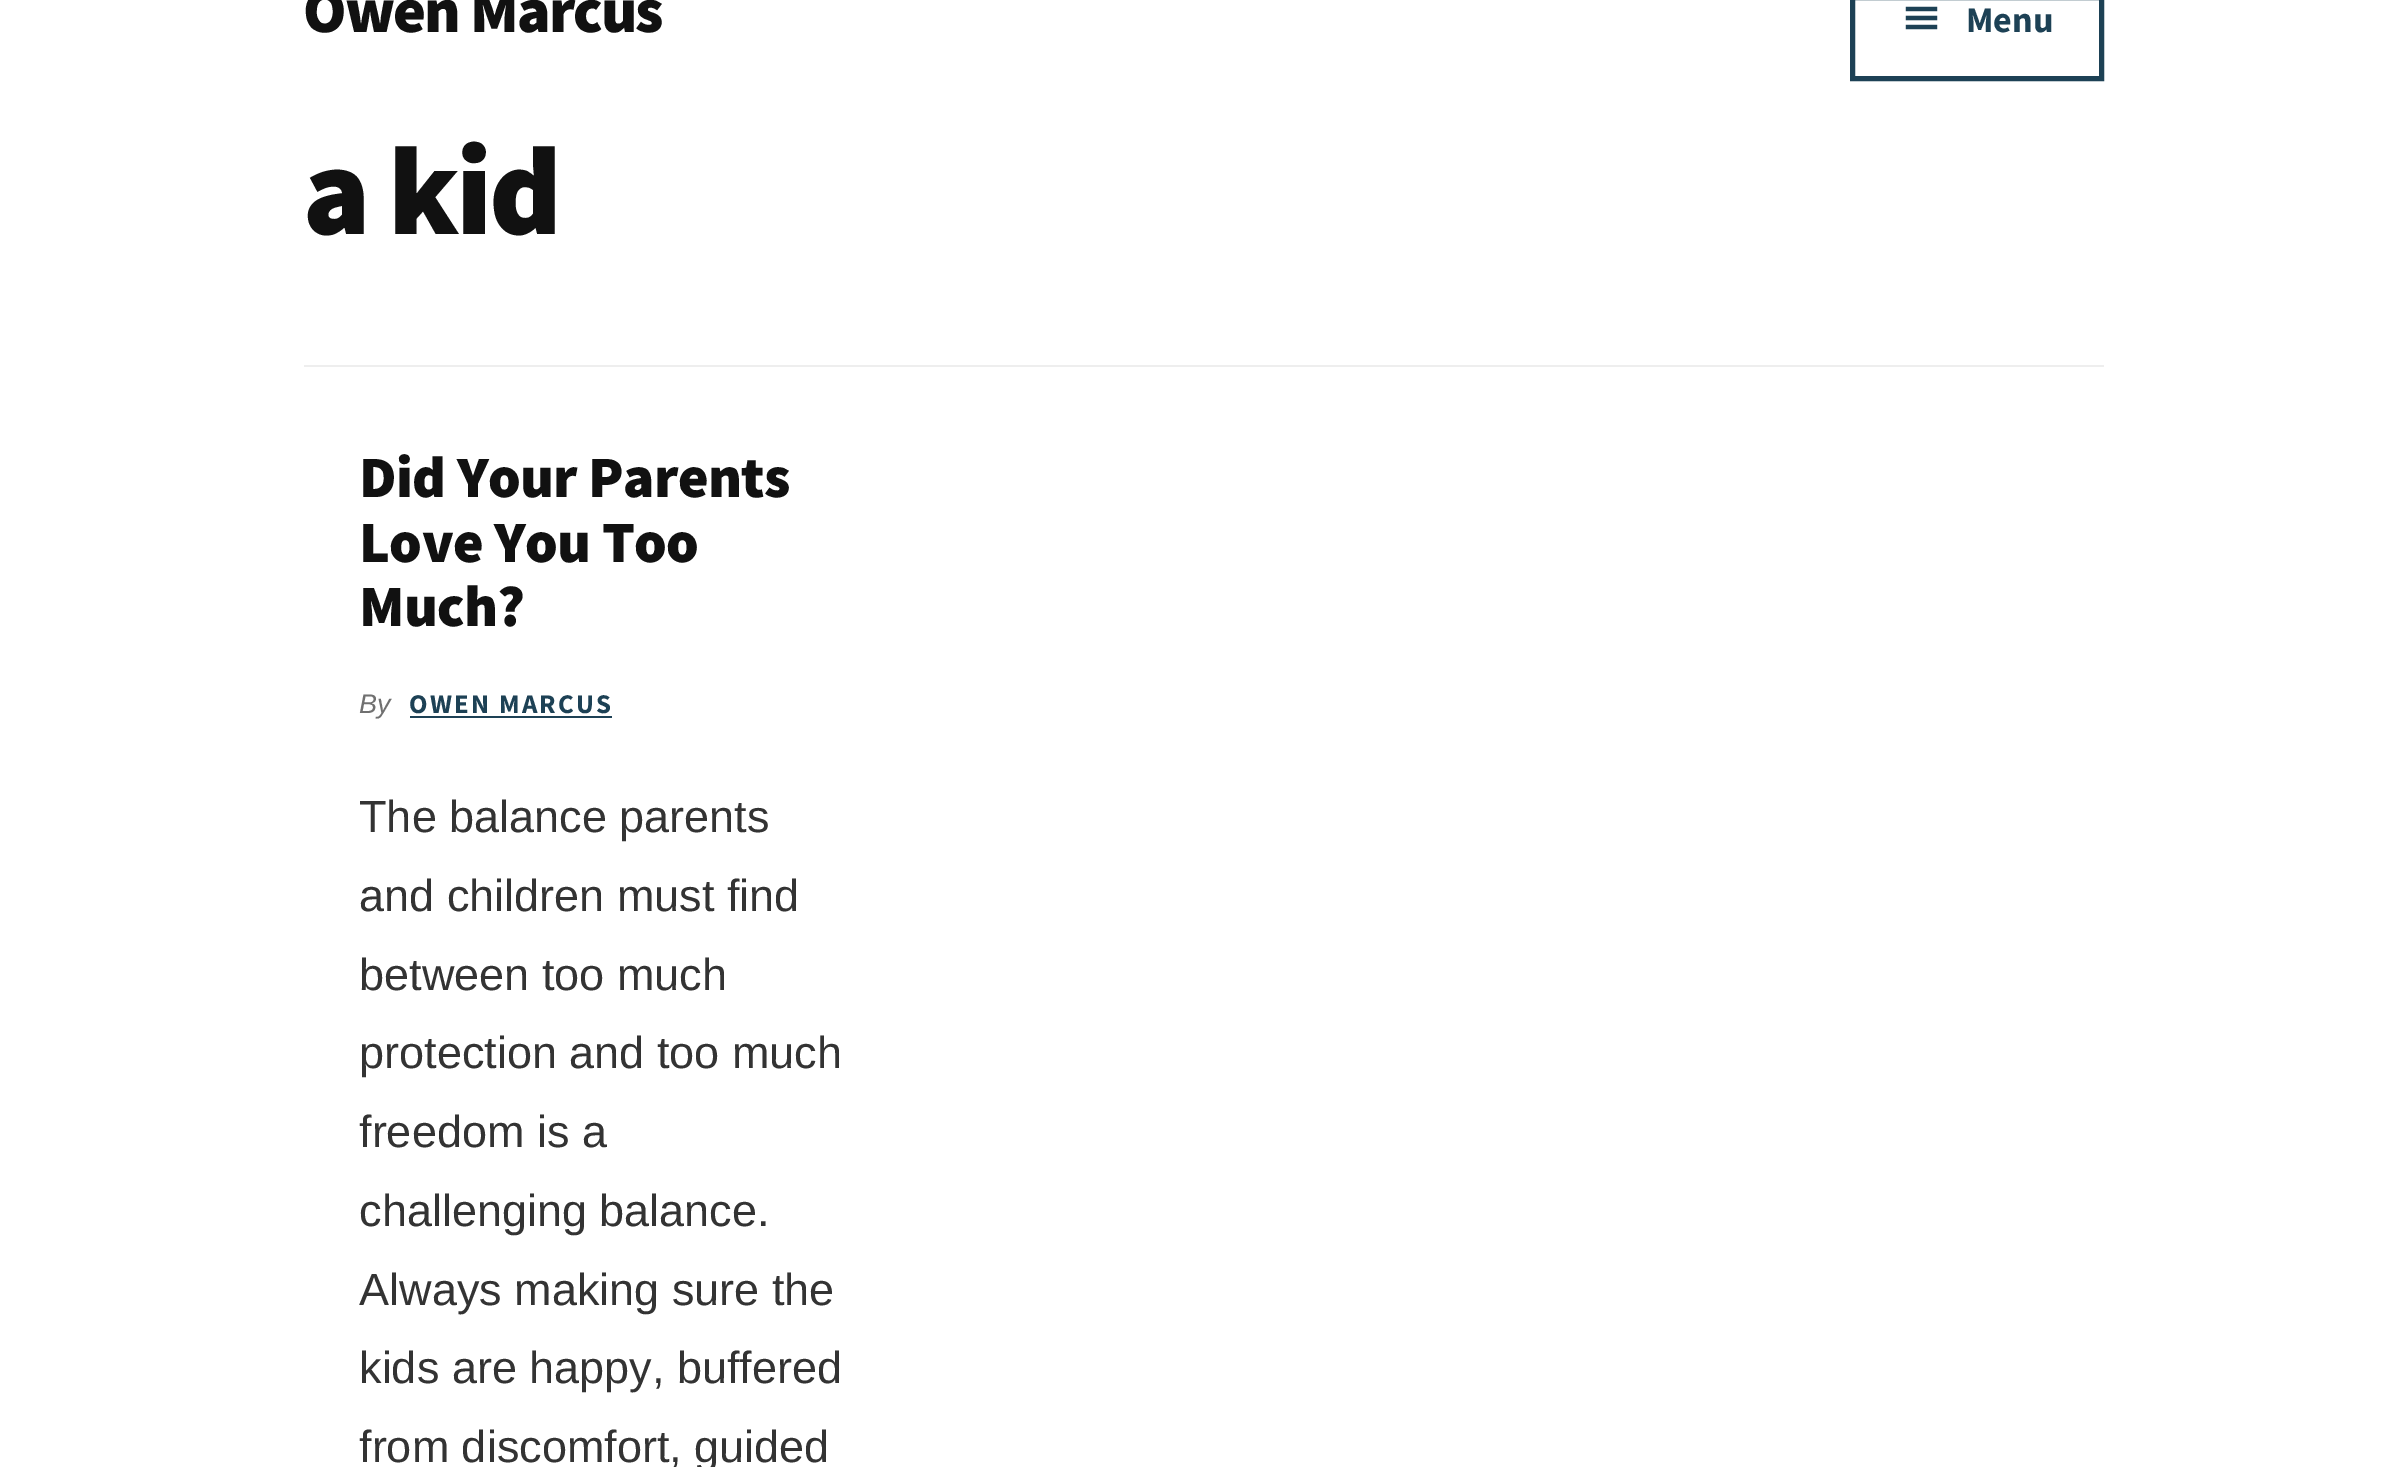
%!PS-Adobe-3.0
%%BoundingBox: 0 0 2405 1467
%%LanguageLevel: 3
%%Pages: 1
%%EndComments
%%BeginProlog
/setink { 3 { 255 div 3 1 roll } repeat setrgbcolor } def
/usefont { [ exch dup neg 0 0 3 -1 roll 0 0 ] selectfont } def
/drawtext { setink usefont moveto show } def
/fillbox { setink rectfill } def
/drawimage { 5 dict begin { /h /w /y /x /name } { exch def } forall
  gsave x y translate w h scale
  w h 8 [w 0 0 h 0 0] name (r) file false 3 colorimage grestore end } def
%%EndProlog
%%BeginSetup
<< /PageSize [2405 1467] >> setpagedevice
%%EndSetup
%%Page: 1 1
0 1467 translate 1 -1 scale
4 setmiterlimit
0 0 2405 1467 255 255 255 fillbox
/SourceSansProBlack-Black 63 usefont
17 17 17 setink
303 32 moveto -1.9 0 (Owen Marcus) ashow
29 65 85 setink
5 setlinewidth
1852.5 -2.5 249 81 rectstroke
(assets/img1.rgb) 1905 6 33 24 drawimage
(Menu) 1966 32 /SourceSansPro-Bold 36 29 65 85 drawtext
304 365 1800 2 238 238 238 fillbox
/SourceSansProBlack-Black 126 usefont
17 17 17 setink
303 234 moveto -3.75 0 (a kid) ashow
/SourceSansProBlack-Black 58.5 usefont
359 497 moveto -0.6 0 (Did Your Parents) ashow
359 562 moveto -0.6 0 (Love You Too) ashow
359 626 moveto -0.6 0 (Much?) ashow
(By) 359 713 /LiberationSans-Italic 27 112 112 112 drawtext
/SourceSansPro-Bold 27 usefont
29 65 85 setink
409 713 moveto 2.25 0 (OWEN MARCUS) ashow
410 716 202 2 29 65 85 fillbox
(The balance parents) 359 832 /LiberationSans-Regular 45 51 51 51 drawtext
(and children must find) 359 911 /LiberationSans-Regular 45 51 51 51 drawtext
(between too much) 359 990 /LiberationSans-Regular 45 51 51 51 drawtext
(protection and too much) 359 1068 /LiberationSans-Regular 45 51 51 51 drawtext
(freedom is a) 359 1147 /LiberationSans-Regular 45 51 51 51 drawtext
(challenging balance.) 359 1226 /LiberationSans-Regular 45 51 51 51 drawtext
(Always making sure the) 359 1305 /LiberationSans-Regular 45 51 51 51 drawtext
(kids are happy, buffered) 359 1383 /LiberationSans-Regular 45 51 51 51 drawtext
(from discomfort, guided) 359 1462 /LiberationSans-Regular 45 51 51 51 drawtext
showpage
%%EOF
